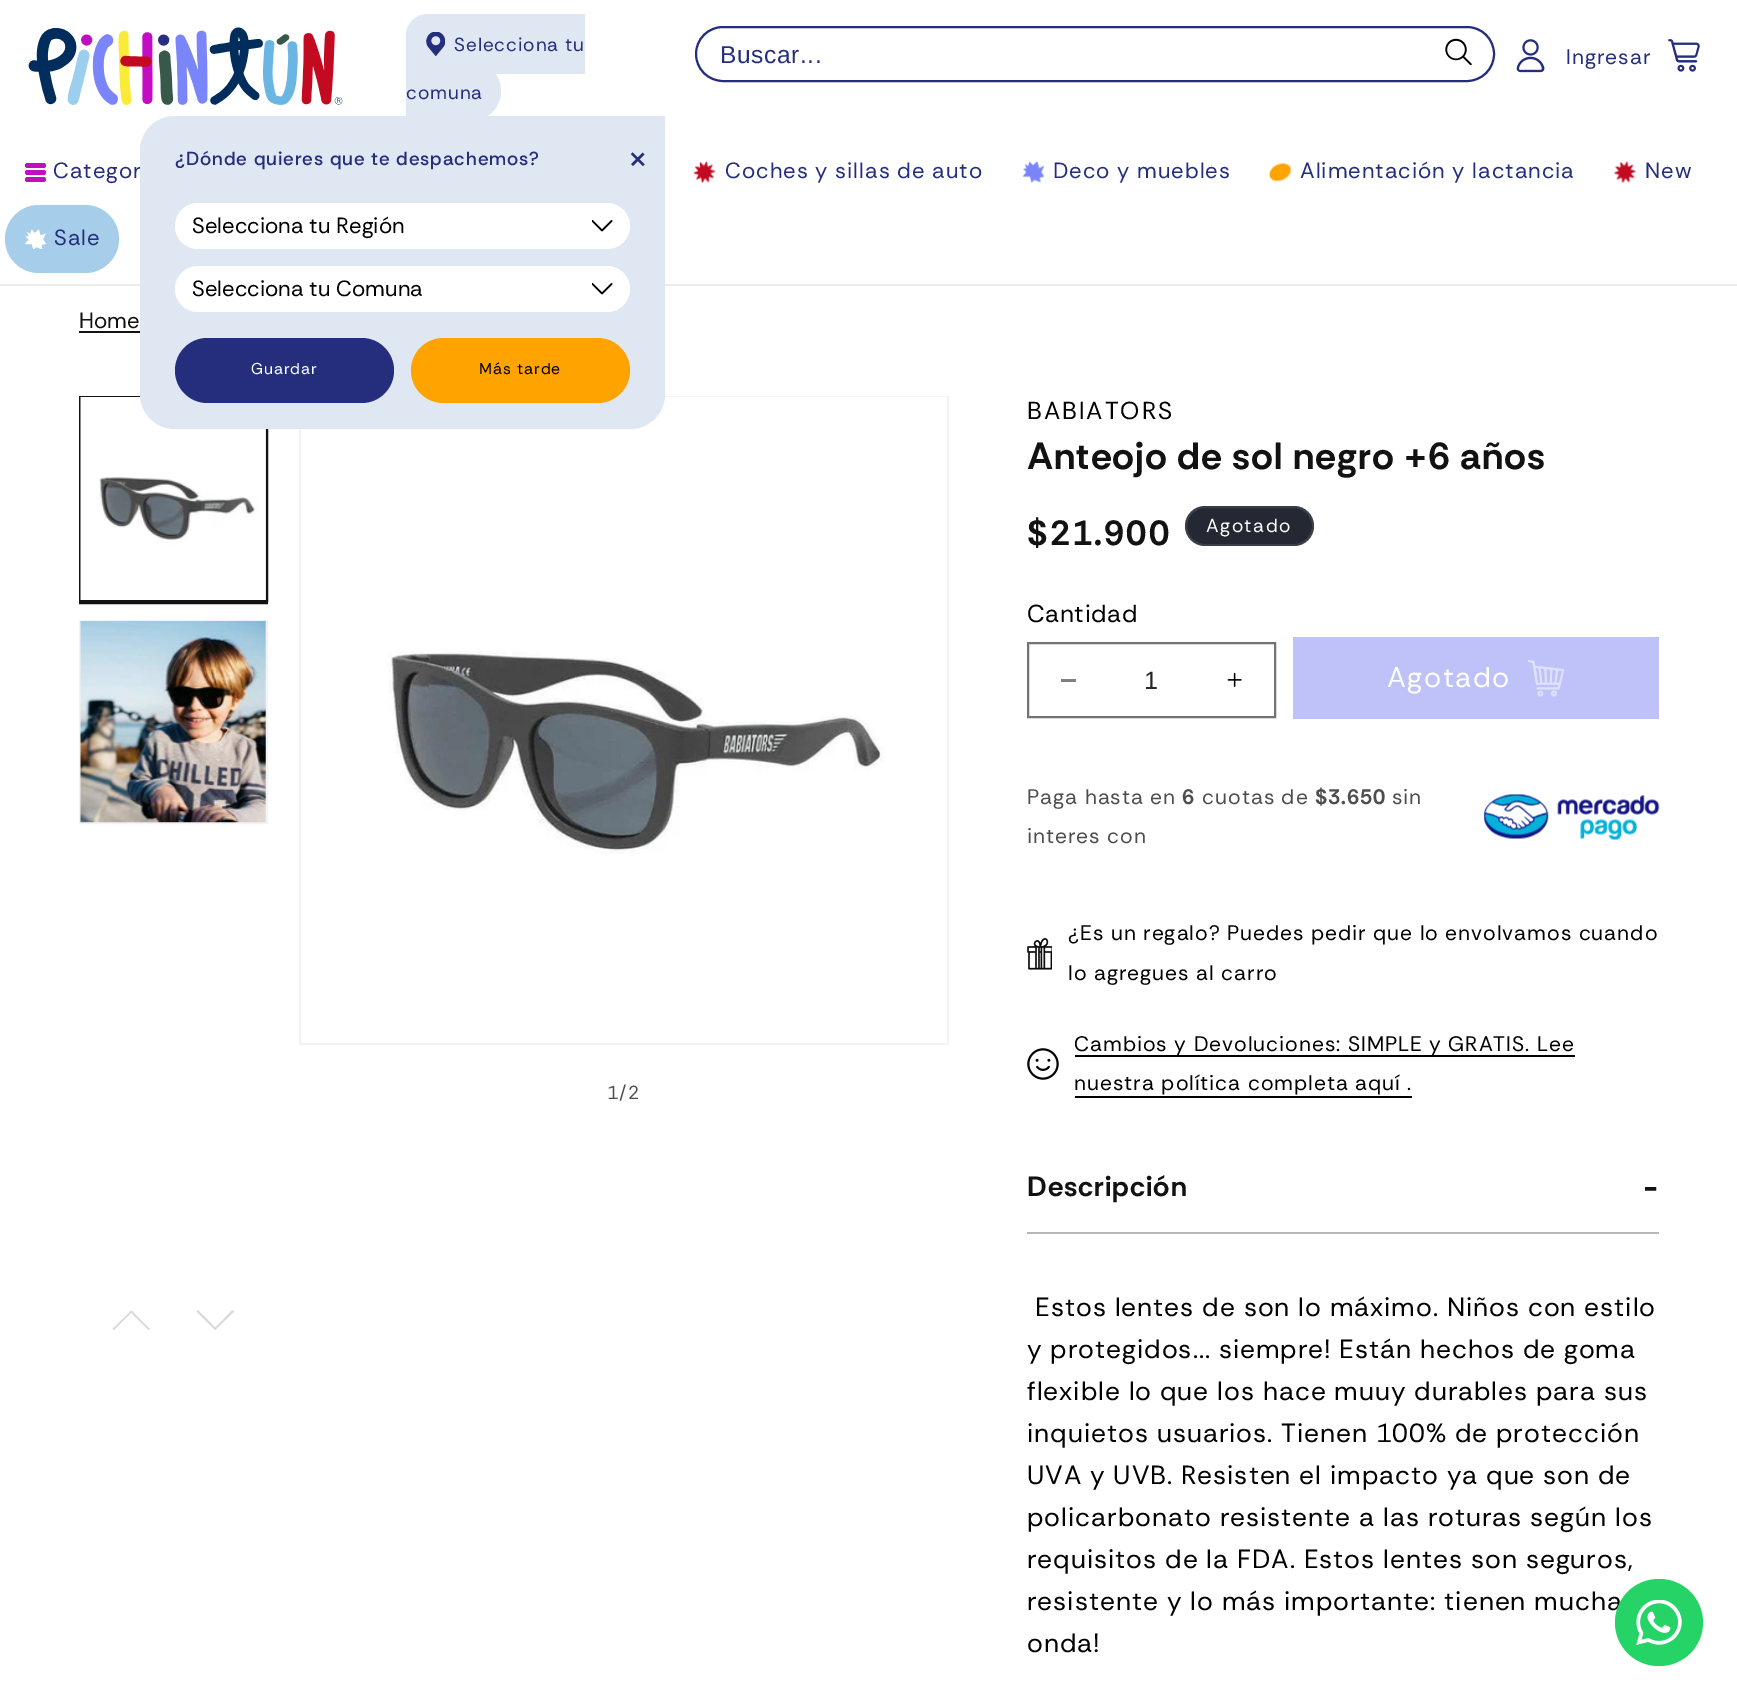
%!PS-Adobe-3.0
%%BoundingBox: 0 0 1737 1700
%%LanguageLevel: 3
%%Pages: 1
%%EndComments
%%BeginProlog
/setink { 3 { 255 div 3 1 roll } repeat setrgbcolor } def
/usefont { [ exch dup neg 0 0 3 -1 roll 0 0 ] selectfont } def
/drawtext { setink usefont moveto show } def
/fillbox { setink rectfill } def
/setalpha { dup .setfillconstantalpha .setstrokeconstantalpha } def
/rrect { 5 dict begin { /r /h /w /y /x } { exch def } forall
  x r add y moveto x w add y 2 copy h add r arct x w add y h add x 1 index r arct
  x y h add x y r arct x y 2 copy exch w add exch r arct closepath end } def
/drawimage { 5 dict begin { /h /w /y /x /name } { exch def } forall
  gsave x y translate w h scale
  w h 8 [w 0 0 h 0 0] name (r) file false 3 colorimage grestore end } def
%%EndProlog
%%BeginSetup
<< /PageSize [1737 1700] /PageUsesTransparency true >> setpagedevice
%%EndSetup
%%Page: 1 1
0 .pushpdf14devicefilter
0 1700 translate 1 -1 scale
4 setmiterlimit
0 0 1737 1700 255 255 255 fillbox
0 284 1737 2 236 236 236 fillbox
(assets/img1.rgb) 28 27 315 78 drawimage
223 231 242 setink
427 14 moveto 448 14 lineto 448 84 lineto 427 84 lineto 415.5 84 406 74.5 406 63 curveto 406 35 lineto 406 23.5 415.5 14 427 14 curveto closepath fill
448 14 5 47 223 231 242 fillbox
453 14 132 60 223 231 242 fillbox
406 61 moveto 471 61 lineto 487.5 61 501 74.5 501 91 curveto 501 107.5 487.5 121 471 121 curveto 406 121 lineto closepath fill
(assets/img2.rgb) 426 32 19 24 drawimage
/RethinkSans-Regular 18.9 usefont
36 46 125 setink
454 51 moveto 0.95 0 (Selecciona tu) ashow
406 99 moveto 0.95 0 (comuna) ashow
/RethinkSans-Regular 22 usefont
53 178 moveto 0.95 0 (Categor) ashow
gsave
79 396 189 875 rectclip
18 18 18 setink
2 setlinewidth
78 395 191 208 rectstroke
grestore
18 18 18 setink
2 setlinewidth
80 397 187 204 rectstroke
(assets/img12.rgb) 80 397 186 203 drawimage
243 243 243 setink
300 397 648 647 rectstroke
(assets/img14.rgb) 301 397 646 457 drawimage
223 231 242 setink
175 116 moveto 665 116 lineto 665 394 lineto 665 413.5 649.5 429 630 429 curveto 175 429 lineto 155.5 429 140 413.5 140 394 curveto 140 151 lineto 140 131.5 155.5 116 175 116 curveto closepath fill
/RethinkSans-Medium 18.9 usefont
36 46 125 setink
175 165 moveto 0.95 0 (¿Dónde quieres que te despachemos?) ashow
/RethinkSans-Regular 37.75 usefont
gsave 622 159 translate 45 rotate 0 0 moveto 0.95 0 (+) ashow grestore
255 255 255 setink
175 203 455 46 23 rrect fill
(assets/img3.rgb) 592 220 21 12 drawimage
(Selecciona tu Región) 192 233 /RethinkSans-Regular 22 0 0 0 drawtext
255 255 255 setink
175 266 455 46 23 rrect fill
(assets/img3.rgb) 592 283 21 12 drawimage
(Selecciona tu Comuna) 192 296 /RethinkSans-Regular 22 0 0 0 drawtext
36 46 125 setink
175 338 219 65 32.5 rrect fill
/RethinkSans-Regular 15.75 usefont
255 255 255 setink
251 374 moveto 0.95 0 (Guardar) ashow
255 163 0 setink
411 338 219 65 32.5 rrect fill
0 0 0 setink
479 374 moveto 0.95 0 (Más tarde) ashow
36 45 125 setink
696 27 798 54 27 rrect stroke
/LiberationSans-Regular 24.5 usefont
36 46 125 setink
720 63 moveto 0.6 0 (Buscar...) ashow
(assets/img4.rgb) 1445 38 27 28 drawimage
(assets/img5.rgb) 1516 39 29 34 drawimage
/RethinkSans-Regular 21 usefont
1566 64 moveto 0.95 0 (Ingresar) ashow
(assets/img6.rgb) 1668 39 32 33 drawimage
194 14 194 setink
25 163 21 5 2.5 rrect fill
25 170 21 5 2.5 rrect fill
25 177 21 5 2.5 rrect fill
(assets/img7.rgb) 693 161 23 22 drawimage
/RethinkSans-Regular 22 usefont
36 46 125 setink
725 178 moveto 0.95 0 (Coches y sillas de auto) ashow
(assets/img8.rgb) 1022 161 23 22 drawimage
1053 178 moveto 0.95 0 (Deco y muebles) ashow
(assets/img9.rgb) 1269 162 23 20 drawimage
1300 178 moveto 0.95 0 (Alimentación y lactancia) ashow
(assets/img10.rgb) 1614 161 22 22 drawimage
1645 178 moveto 0.95 0 (New) ashow
166 206 234 setink
5 205 114 68 34 rrect fill
(assets/img11.rgb) 25 229 21 20 drawimage
36 46 125 setink
54 245 moveto 0.95 0 (Sale) ashow
(Home) 79 328 /RethinkSans-Regular 22 18 18 18 drawtext
79 331 61 2 18 18 18 fillbox
243 243 243 setink
80 621 187 202 rectstroke
(assets/img13.rgb) 80 621 186 202 drawimage
217 217 217 setink
112.5 1329 moveto 131.5 1310.5 lineto 132.5 1311.5 lineto 114 1330 lineto closepath fill
130 1311.5 moveto 131.5 1310.5 lineto 150 1329 lineto 148.5 1330 lineto closepath fill
234 1311.5 moveto 215 1330 lineto 214 1329 lineto 232.5 1310 lineto closepath fill
216.5 1329 moveto 215 1330 lineto 196.5 1311.5 lineto 198 1310 lineto closepath fill
/RethinkSans-Regular 18.9 usefont
77 77 77 setink
607 1099 moveto 1 0 (1/2) ashow
/RethinkSans-Regular 24.5 usefont
0 0 0 setink
1027 419 moveto 2 0 (BABIATORS) ashow
/RethinkSans-Bold 37.75 usefont
18 18 18 setink
1027 469 moveto 0.95 0 (Anteojo de sol negro +6 años) ashow
/RethinkSans-Bold 35 usefont
1027 545 moveto 2 0 ($21.900) ashow
36 40 51 setink
1185 506 129 40 20 rrect fill
0.1 setalpha
255 255 255 setink
1186 507 127 38 19 rrect stroke
/RethinkSans-Regular 18.9 usefont
1 setalpha
1206 532 moveto 1.5 0 (Agotado) ashow
/RethinkSans-Regular 24.5 usefont
0 0 0 setink
1027 622 moveto 0.6 0 (Cantidad) ashow
1061 679 15 3 128 128 128 fillbox
(assets/img15.rgb) 1227 672 15 15 drawimage
115 115 115 setink
1028 643 247 74 rectstroke
(1) 1144 689 /LiberationSans-Regular 25 38 38 38 drawtext
1293 637 366 82 190 194 249 fillbox
/RethinkSans-Regular 28.5 usefont
255 255 255 setink
1387 687 moveto 1.5 0 (Agotado) ashow
(assets/img16.rgb) 1528 660 37 37 drawimage
/RethinkSans-Regular 21 usefont
77 77 77 setink
1027 804 moveto 0.95 0 (Paga hasta en) ashow
/RethinkSans-Bold 21 usefont
1182 804 moveto 0.95 0 (6) ashow
/RethinkSans-Regular 21 usefont
1202 804 moveto 0.95 0 (cuotas de) ashow
/RethinkSans-Bold 21 usefont
1315 804 moveto 0.95 0 ($3.650) ashow
/RethinkSans-Regular 21 usefont
1392 804 moveto 0.95 0 (sin) ashow
1027 843 moveto 0.95 0 (interes con) ashow
(assets/img17.rgb) 1484 794 176 46 drawimage
(assets/img18.rgb) 1027 938 25 32 drawimage
0 0 0 setink
1068 940 moveto 0.95 0 (¿Es un regalo? Puedes pedir que lo envolvamos cuando) ashow
1068 980 moveto 0.95 0 (lo agregues al carro) ashow
(assets/img19.rgb) 1027 1048 32 32 drawimage
1075 1055 500 2 0 0 0 fillbox
1074 1051 moveto 0.95 0 (Cambios y Devoluciones: SIMPLE y GRATIS. Lee) ashow
1074 1090 moveto 0.95 0 (nuestra política completa aquí .) ashow
1075 1096 337 2 0 0 0 fillbox
1027 1232 632 2 184 184 184 fillbox
/RethinkSans-Bold 28 usefont
18 18 18 setink
1027 1196 moveto 0.95 0 (Descripción) ashow
/RethinkSans-Bold 35 usefont
1643 1199 moveto 0.95 0 (-) ashow
/RethinkSans-Regular 26.25 usefont
0 0 0 setink
1035 1316 moveto 0.95 0 (Estos lentes de son lo máximo. Niños con estilo) ashow
1027 1358 moveto 0.95 0 (y protegidos... siempre! Están hechos de goma) ashow
1027 1400 moveto 0.95 0 (flexible lo que los hace muuy durables para sus) ashow
1027 1442 moveto 0.95 0 (inquietos usuarios. Tienen 100% de protección) ashow
1027 1484 moveto 0.95 0 (UVA y UVB. Resisten el impacto ya que son de) ashow
1027 1526 moveto 0.95 0 (policarbonato resistente a las roturas según los) ashow
1027 1568 moveto 0.95 0 (requisitos de la FDA. Estos lentes son seguros,) ashow
1027 1610 moveto 0.95 0 (resistente y lo más importante: tienen mucha) ashow
1027 1652 moveto 0.95 0 (onda!) ashow
37 211 102 setink
1615 1579 88 87 43.5 rrect fill
(assets/img20.rgb) 1636 1600 46 45 drawimage
.poppdf14devicefilter showpage
%%EOF
